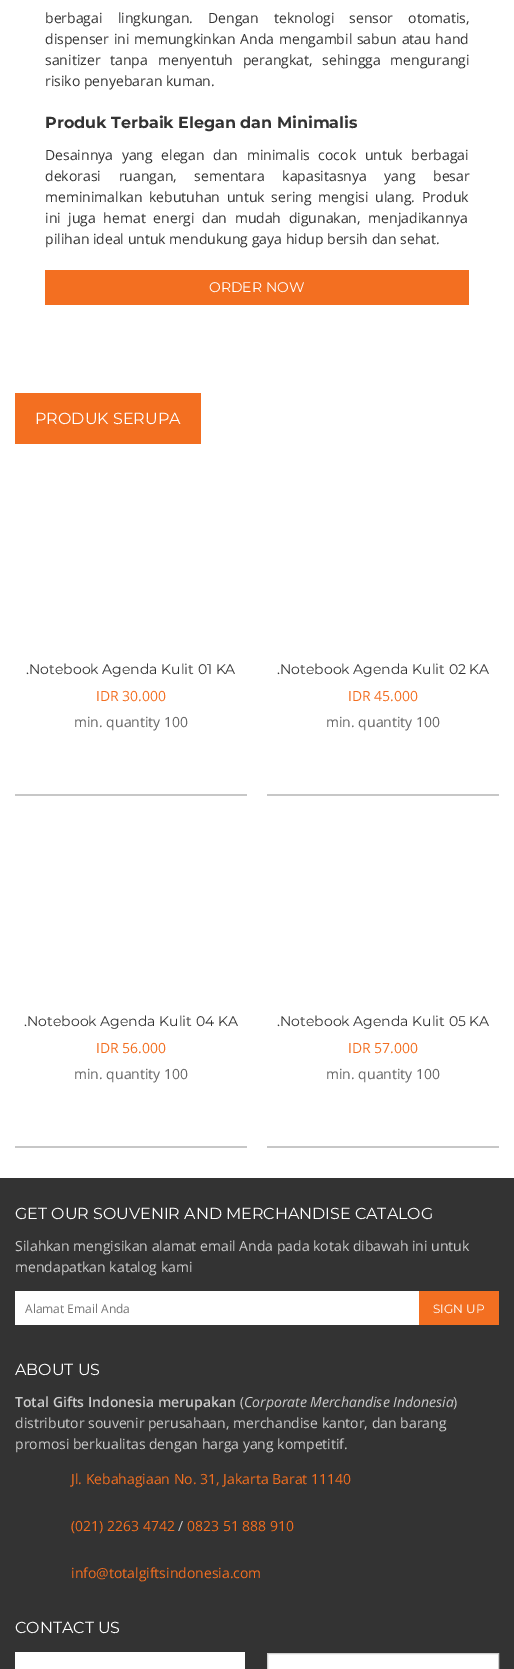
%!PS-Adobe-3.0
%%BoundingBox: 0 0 514 1669
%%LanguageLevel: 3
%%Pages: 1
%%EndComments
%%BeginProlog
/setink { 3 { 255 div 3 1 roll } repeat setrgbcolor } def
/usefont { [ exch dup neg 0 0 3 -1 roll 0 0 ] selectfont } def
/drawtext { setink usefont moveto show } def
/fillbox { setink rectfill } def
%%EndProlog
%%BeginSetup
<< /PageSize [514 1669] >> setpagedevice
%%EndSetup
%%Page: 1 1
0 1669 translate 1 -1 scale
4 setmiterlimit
0 0 514 1669 255 255 255 fillbox
/OpenSans-Regular 14 usefont
51 51 51 setink
45 23 moveto 11.5 0 32 (berbagai lingkungan. Dengan teknologi sensor otomatis,) widthshow
45 44 moveto 1 0 32 (dispenser ini memungkinkan Anda mengambil sabun atau hand) widthshow
45 65 moveto 6.25 0 32 (sanitizer tanpa menyentuh perangkat, sehingga mengurangi) widthshow
(risiko penyebaran kuman.) 45 86 /OpenSans-Regular 14 51 51 51 drawtext
(Produk Terbaik Elegan dan Minimalis) 45 128 /Montserrat-Bold 15.95 51 51 51 drawtext
/OpenSans-Regular 14 usefont
45 160 moveto 5 0 32 (Desainnya yang elegan dan minimalis cocok untuk berbagai) widthshow
45 181 moveto 14 0 32 (dekorasi ruangan, sementara kapasitasnya yang besar) widthshow
45 202 moveto 3 0 32 (meminimalkan kebutuhan untuk sering mengisi ulang. Produk) widthshow
45 223 moveto 4 0 32 (ini juga hemat energi dan mudah digunakan, menjadikannya) widthshow
(pilihan ideal untuk mendukung gaya hidup bersih dan sehat.) 45 244 /OpenSans-Regular 14 51 51 51 drawtext
45 270 424 35 243 111 33 fillbox
(ORDER NOW) 209 292 /Montserrat-Regular 14 255 255 255 drawtext
15 393 186 51 243 111 33 fillbox
(PRODUK SERUPA) 35 424 /Montserrat-Regular 16 255 255 255 drawtext
15 794 232 2 199 199 199 fillbox
(.Notebook Agenda Kulit 01 KA) 26 674 /Montserrat-Regular 14 51 51 51 drawtext
(IDR 30.000) 96 701 /OpenSans-Regular 14 243 111 33 drawtext
(min. quantity 100) 74 727 /OpenSans-Regular 14 102 102 102 drawtext
267 794 232 2 199 199 199 fillbox
(.Notebook Agenda Kulit 02 KA) 277 674 /Montserrat-Regular 14 51 51 51 drawtext
(IDR 45.000) 348 701 /OpenSans-Regular 14 243 111 33 drawtext
(min. quantity 100) 326 727 /OpenSans-Regular 14 102 102 102 drawtext
15 1146 232 2 199 199 199 fillbox
(.Notebook Agenda Kulit 04 KA) 24 1026 /Montserrat-Regular 14 51 51 51 drawtext
(IDR 56.000) 96 1053 /OpenSans-Regular 14 243 111 33 drawtext
(min. quantity 100) 74 1079 /OpenSans-Regular 14 102 102 102 drawtext
267 1146 232 2 199 199 199 fillbox
(.Notebook Agenda Kulit 05 KA) 277 1026 /Montserrat-Regular 14 51 51 51 drawtext
(IDR 57.000) 348 1053 /OpenSans-Regular 14 243 111 33 drawtext
(min. quantity 100) 326 1079 /OpenSans-Regular 14 102 102 102 drawtext
0 1178 514 491 51 51 51 fillbox
(GET OUR SOUVENIR AND MERCHANDISE CATALOG) 15 1219 /Montserrat-Regular 15.95 255 255 255 drawtext
(Silahkan mengisikan alamat email Anda pada kotak dibawah ini untuk) 15 1251 /OpenSans-Regular 14 204 204 204 drawtext
(mendapatkan katalog kami) 15 1272 /OpenSans-Regular 14 204 204 204 drawtext
15 1291 404 34 255 255 255 fillbox
(Alamat Email Anda) 25 1313 /OpenSans-Regular 12 117 117 117 drawtext
419 1291 80 34 243 111 33 fillbox
(SIGN UP) 433 1313 /Montserrat-Regular 12 255 255 255 drawtext
(ABOUT US) 15 1375 /Montserrat-Regular 15.95 255 255 255 drawtext
(Total Gifts Indonesia merupakan) 15 1407 /OpenSans-SemiBold 14 204 204 204 drawtext
(\() 240 1407 /OpenSans-Regular 14 204 204 204 drawtext
(Corporate Merchandise Indonesia) 244 1407 /OpenSans-Italic 14 204 204 204 drawtext
(\)) 453 1407 /OpenSans-Regular 14 204 204 204 drawtext
(distributor souvenir perusahaan, merchandise kantor, dan barang) 15 1428 /OpenSans-Regular 14 204 204 204 drawtext
(promosi berkualitas dengan harga yang kompetitif.) 15 1449 /OpenSans-Regular 14 204 204 204 drawtext
(Jl. Kebahagiaan No. 31, Jakarta Barat 11140) 71 1484 /OpenSans-Regular 14 243 111 33 drawtext
(\(021\) 2263 4742) 71 1531 /OpenSans-Regular 14 243 111 33 drawtext
(/) 178 1531 /OpenSans-Regular 14 204 204 204 drawtext
(0823 51 888 910) 187 1531 /OpenSans-Regular 14 243 111 33 drawtext
(info@totalgiftsindonesia.com) 71 1578 /OpenSans-Regular 14 243 111 33 drawtext
(CONTACT US) 15 1633 /Montserrat-Regular 15.95 255 255 255 drawtext
15 1652 230 17 255 255 255 fillbox
267.5 1653.5 moveto 498.5 1653.5 lineto 498.5 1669.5 lineto 267.5 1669.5 lineto closepath gsave fill grestore
207 207 207 setink
stroke
showpage
%%EOF
